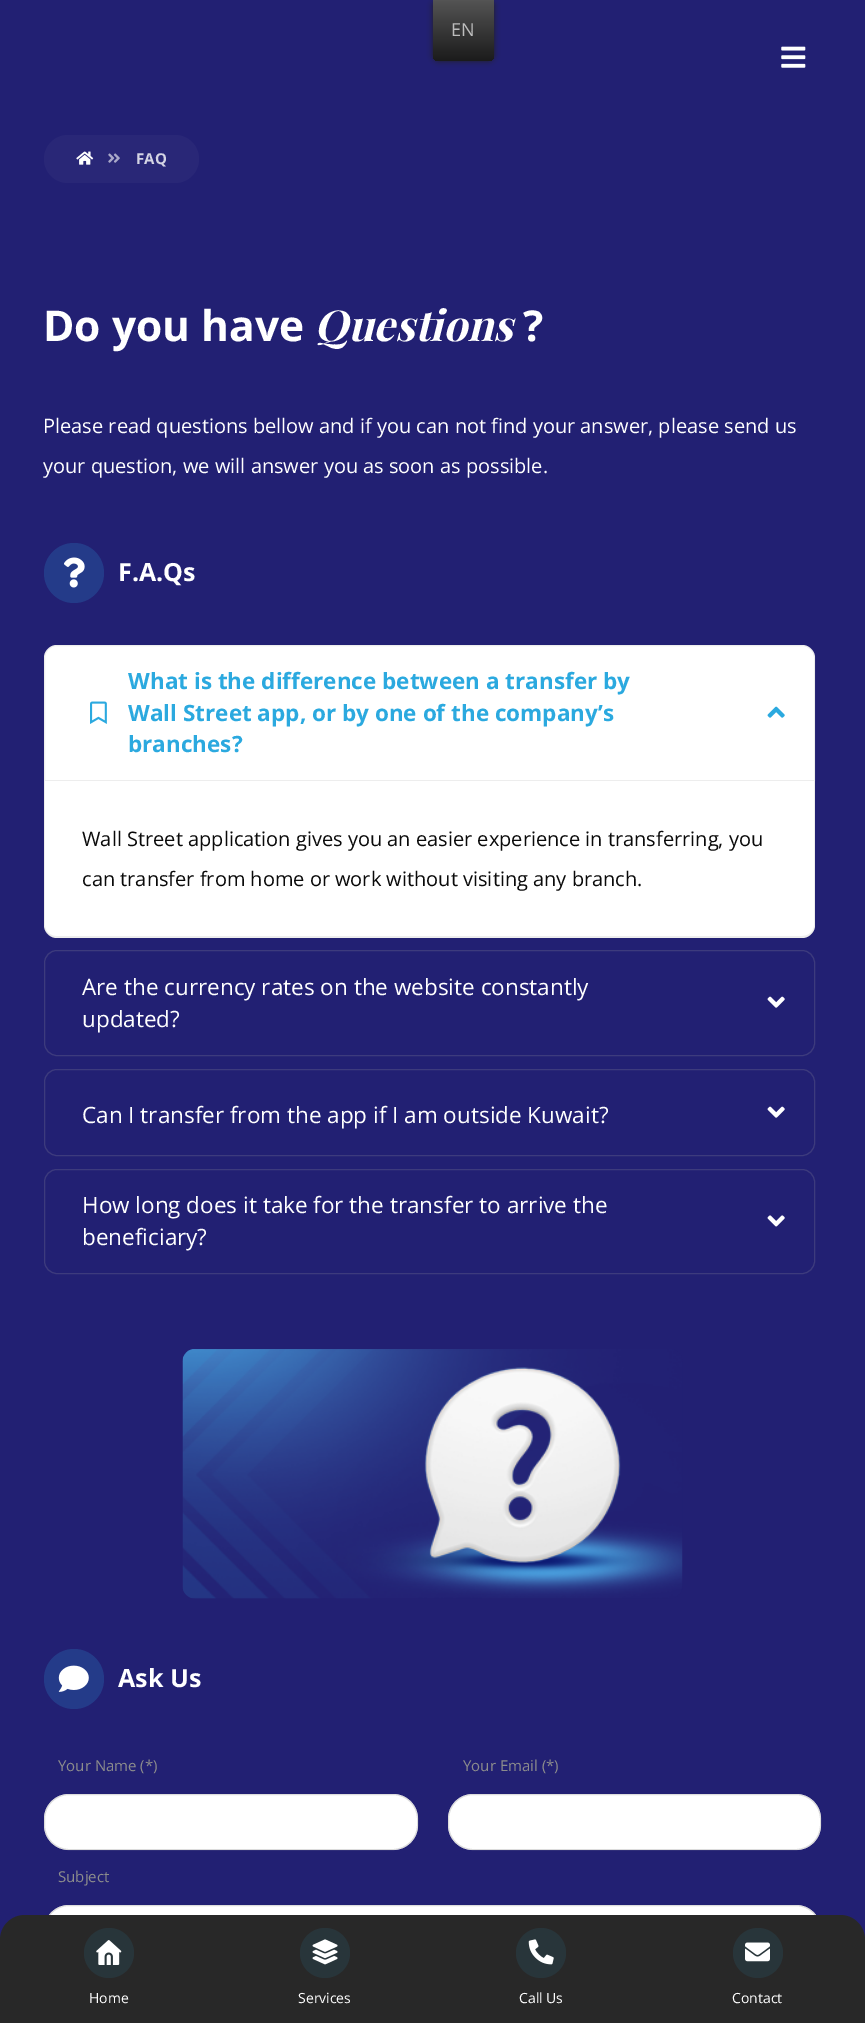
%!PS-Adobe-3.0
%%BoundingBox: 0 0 865 2023
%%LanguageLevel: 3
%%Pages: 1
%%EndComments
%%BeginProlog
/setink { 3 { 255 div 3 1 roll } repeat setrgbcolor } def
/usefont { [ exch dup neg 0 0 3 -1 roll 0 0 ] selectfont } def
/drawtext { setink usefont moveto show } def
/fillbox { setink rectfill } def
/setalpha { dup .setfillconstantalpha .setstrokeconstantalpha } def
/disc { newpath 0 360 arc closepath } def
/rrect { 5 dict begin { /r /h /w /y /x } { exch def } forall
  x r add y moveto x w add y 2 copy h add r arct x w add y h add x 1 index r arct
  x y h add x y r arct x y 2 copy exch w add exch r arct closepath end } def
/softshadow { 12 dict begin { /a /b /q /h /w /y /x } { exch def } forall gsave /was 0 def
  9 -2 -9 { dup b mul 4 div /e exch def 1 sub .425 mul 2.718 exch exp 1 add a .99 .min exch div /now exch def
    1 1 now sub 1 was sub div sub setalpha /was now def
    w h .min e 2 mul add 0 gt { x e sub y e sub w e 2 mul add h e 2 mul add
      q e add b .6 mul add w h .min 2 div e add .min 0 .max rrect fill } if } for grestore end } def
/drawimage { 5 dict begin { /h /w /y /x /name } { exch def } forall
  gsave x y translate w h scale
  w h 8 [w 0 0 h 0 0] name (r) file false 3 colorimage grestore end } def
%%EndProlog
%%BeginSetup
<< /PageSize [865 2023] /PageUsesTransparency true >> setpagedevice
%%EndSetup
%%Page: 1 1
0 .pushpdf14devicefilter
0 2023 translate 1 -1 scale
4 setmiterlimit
0 0 865 2023 34 32 115 fillbox
33 33 33 setink
433 0 61 61 6 3 1 softshadow
gsave 433 0 moveto 494 0 lineto 494 55 lineto 494 58.5 491.5 61 488 61 curveto 439 61 lineto 435.5 61 433 58.5 433 55 curveto closepath clip newpath
<< /ShadingType 2 /ColorSpace /DeviceRGB /Coords [463 61 463 0] /Extend [true true] /Function << /FunctionType 2 /Domain [0 1] /C0 [0.106 0.106 0.106] /C1 [0.329 0.329 0.329] /N 1 >> >> shfill grestore
(EN) 451 36 /OpenSans-Regular 18 189 189 189 drawtext
(assets/img1.rgb) 781 46 25 22 drawimage
41 39 119 setink
44 135 155 48 24 rrect fill
(assets/img2.rgb) 76 151 18 14 drawimage
(assets/img3.rgb) 108 153 12 10 drawimage
(FAQ) 136 164 /OpenSans-Bold 15 212 212 228 drawtext
(Do you have) 43 341 /OpenSans-Bold 42.5 255 255 255 drawtext
(Questions) 314 341 /PlayfairDisplay-BoldItalic 42.5 255 255 255 drawtext
(?) 523 341 /OpenSans-Bold 42.5 255 255 255 drawtext
(Please read questions bellow and if you can not find your answer, please send us) 43 433 /OpenSans-Regular 20 255 255 255 drawtext
(your question, we will answer you as soon as possible.) 43 473 /OpenSans-Regular 20 255 255 255 drawtext
36 59 137 setink
74 573 30 disc fill
(assets/img4.rgb) 64 557 21 31 drawimage
(F.A.Qs) 118 581 /OpenSans-Bold 25 255 255 255 drawtext
57 645 moveto 802 645 lineto 809 645 815 651 815 658 curveto 815 781 lineto 44 781 lineto 44 658 lineto 44 651 50 645 57 645 curveto closepath fill
0.2 setalpha
167 167 167 setink
57 645.5 moveto 802 645.5 lineto 809 645.5 814.5 651 814.5 658 curveto 814.5 780.5 lineto 44.5 780.5 lineto 44.5 658 lineto 44.5 651 50 645.5 57 645.5 curveto closepath stroke
1 setalpha
(assets/img5.rgb) 90 701 17 23 drawimage
(What is the difference between a transfer by) 128 689 /OpenSans-Bold 22.5 43 169 223 drawtext
(Wall Street app, or by one of the company’s) 128 721 /OpenSans-Bold 22.5 43 169 223 drawtext
(branches?) 128 752 /OpenSans-Bold 22.5 43 169 223 drawtext
(assets/img6.rgb) 767 706 18 12 drawimage
255 255 255 setink
44 781 moveto 815 781 lineto 815 925 lineto 815 932 809 938 802 938 curveto 57 938 lineto 50 938 44 932 44 925 curveto closepath fill
0.2 setalpha
167 167 167 setink
44 781 moveto 815 781 lineto 815 925 lineto 815 932 809 938 802 938 curveto 56 938 lineto 49 938 44 932 44 925 curveto closepath 45 781 moveto 814 781 lineto 814 925 lineto 814 931 809 936 802 936 curveto 56 936 lineto 50 936 45 931 45 925 curveto closepath eofill
1 setalpha
(Wall Street application gives you an easier experience in transferring, you) 82 846 /OpenSans-Regular 20 10 10 10 drawtext
(can transfer from home or work without visiting any branch.) 82 886 /OpenSans-Regular 20 10 10 10 drawtext
61 59 125 setink
44.5 950.5 770 105 12.5 rrect stroke
(Are the currency rates on the website constantly) 82 995 /OpenSans-Regular 22.5 255 255 255 drawtext
(updated?) 82 1027 /OpenSans-Regular 22.5 255 255 255 drawtext
(assets/img7.rgb) 767 996 18 12 drawimage
61 59 125 setink
44.5 1069.5 770 86 12.5 rrect stroke
(Can I transfer from the app if I am outside Kuwait?) 82 1123 /OpenSans-Regular 22.5 255 255 255 drawtext
(assets/img7.rgb) 767 1106 18 12 drawimage
61 59 125 setink
44.5 1169.5 770 104 12.5 rrect stroke
(How long does it take for the transfer to arrive the) 82 1213 /OpenSans-Regular 22.5 255 255 255 drawtext
(beneficiary?) 82 1245 /OpenSans-Regular 22.5 255 255 255 drawtext
(assets/img8.rgb) 767 1215 18 12 drawimage
(assets/img9.rgb) 182 1349 501 250 drawimage
36 59 137 setink
74 1679 30 disc fill
(assets/img10.rgb) 58 1665 31 27 drawimage
(Ask Us) 118 1687 /OpenSans-Bold 25 255 255 255 drawtext
(Your Name \(*\)) 58 1771 /OpenSans-Regular 15 140 140 140 drawtext
255 255 255 setink
44 1794 374 56 25 rrect fill
0.4 setalpha
167 167 167 setink
44.5 1794.5 373 55 24.5 rrect stroke
1 setalpha
(Your Email \(*\)) 463 1771 /OpenSans-Regular 15 140 140 140 drawtext
255 255 255 setink
448 1794 373 56 25 rrect fill
0.4 setalpha
167 167 167 setink
448.5 1794.5 372 55 24.5 rrect stroke
1 setalpha
(Subject) 58 1882 /OpenSans-Regular 15 140 140 140 drawtext
255 255 255 setink
44 1905 777 56 25 rrect fill
0.4 setalpha
167 167 167 setink
44.5 1905.5 776 55 24.5 rrect stroke
1 setalpha
40 40 40 setink
25 1915 moveto 840 1915 lineto 854 1915 865 1926 865 1940 curveto 865 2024 lineto 0 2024 lineto 0 1940 lineto 0 1926 11 1915 25 1915 curveto closepath fill
40 53 58 setink
109 1953 25 disc fill
(assets/img11.rgb) 96 1940 26 25 drawimage
(Home) 89 2003 /OpenSans-Regular 14 255 255 255 drawtext
40 53 58 setink
325 1953 25 disc fill
(assets/img12.rgb) 312 1939 26 26 drawimage
(Services) 298 2003 /OpenSans-Regular 14 255 255 255 drawtext
40 53 58 setink
541 1953 25 disc fill
(assets/img13.rgb) 528 1939 26 26 drawimage
(Call Us) 519 2003 /OpenSans-Regular 14 255 255 255 drawtext
40 53 58 setink
758 1953 25 disc fill
(assets/img14.rgb) 745 1942 25 20 drawimage
(Contact) 732 2003 /OpenSans-Regular 14 255 255 255 drawtext
.poppdf14devicefilter showpage
%%EOF
